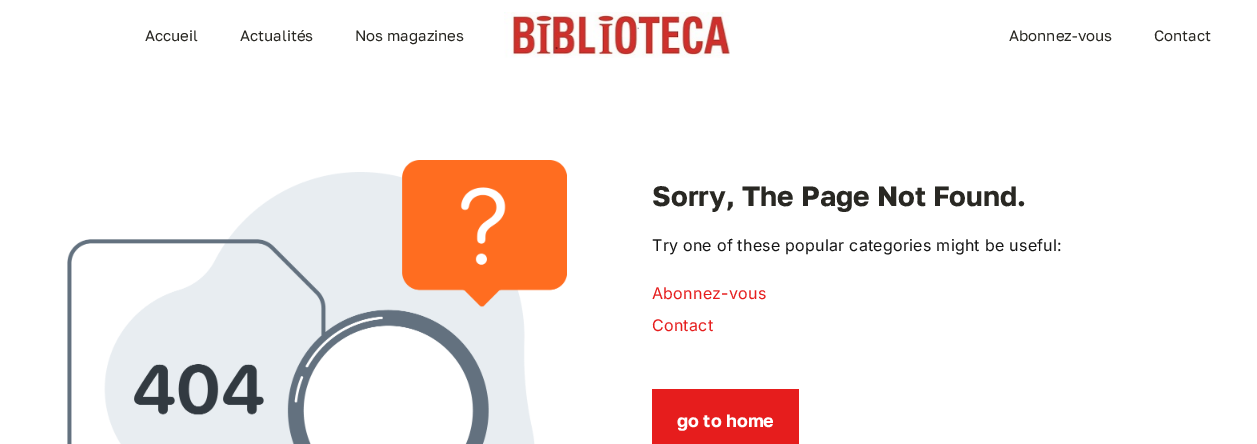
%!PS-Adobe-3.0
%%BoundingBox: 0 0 1257 444
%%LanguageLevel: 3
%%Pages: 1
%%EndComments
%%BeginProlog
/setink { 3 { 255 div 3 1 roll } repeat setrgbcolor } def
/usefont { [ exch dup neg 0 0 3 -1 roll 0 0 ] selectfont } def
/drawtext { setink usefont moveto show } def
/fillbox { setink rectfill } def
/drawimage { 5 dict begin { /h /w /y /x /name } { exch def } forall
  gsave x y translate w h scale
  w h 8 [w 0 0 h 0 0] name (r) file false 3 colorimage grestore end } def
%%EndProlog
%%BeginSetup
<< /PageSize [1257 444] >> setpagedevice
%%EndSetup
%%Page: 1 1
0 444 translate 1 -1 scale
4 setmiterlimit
0 0 1257 444 255 255 255 fillbox
(Accueil) 145 41 /GolosText-Regular 15 41 40 35 drawtext
(Actualités) 240 41 /GolosText-Regular 15 41 40 35 drawtext
(Nos magazines) 355 41 /GolosText-Regular 15 41 40 35 drawtext
(assets/img1.rgb) 504 12 226 46 drawimage
(Abonnez-vous) 1009 41 /GolosText-Regular 15 41 40 35 drawtext
(Contact) 1154 41 /GolosText-Regular 15 41 40 35 drawtext
(assets/img2.rgb) 67 160 500 284 drawimage
(Sorry, The Page Not Found.) 652 206 /GolosText-Bold 28 41 40 35 drawtext
/Inter-Regular 16 usefont
22 22 22 setink
652 251 moveto 0.25 0 (Try one of these popular categories might be useful:) ashow
230 29 29 setink
652 299 moveto 0.25 0 (Abonnez-vous) ashow
652 331 moveto 0.25 0 (Contact) ashow
652 389 147 55 230 29 29 fillbox
(go to home) 677 427 /GolosText-Bold 18 255 255 255 drawtext
showpage
%%EOF
